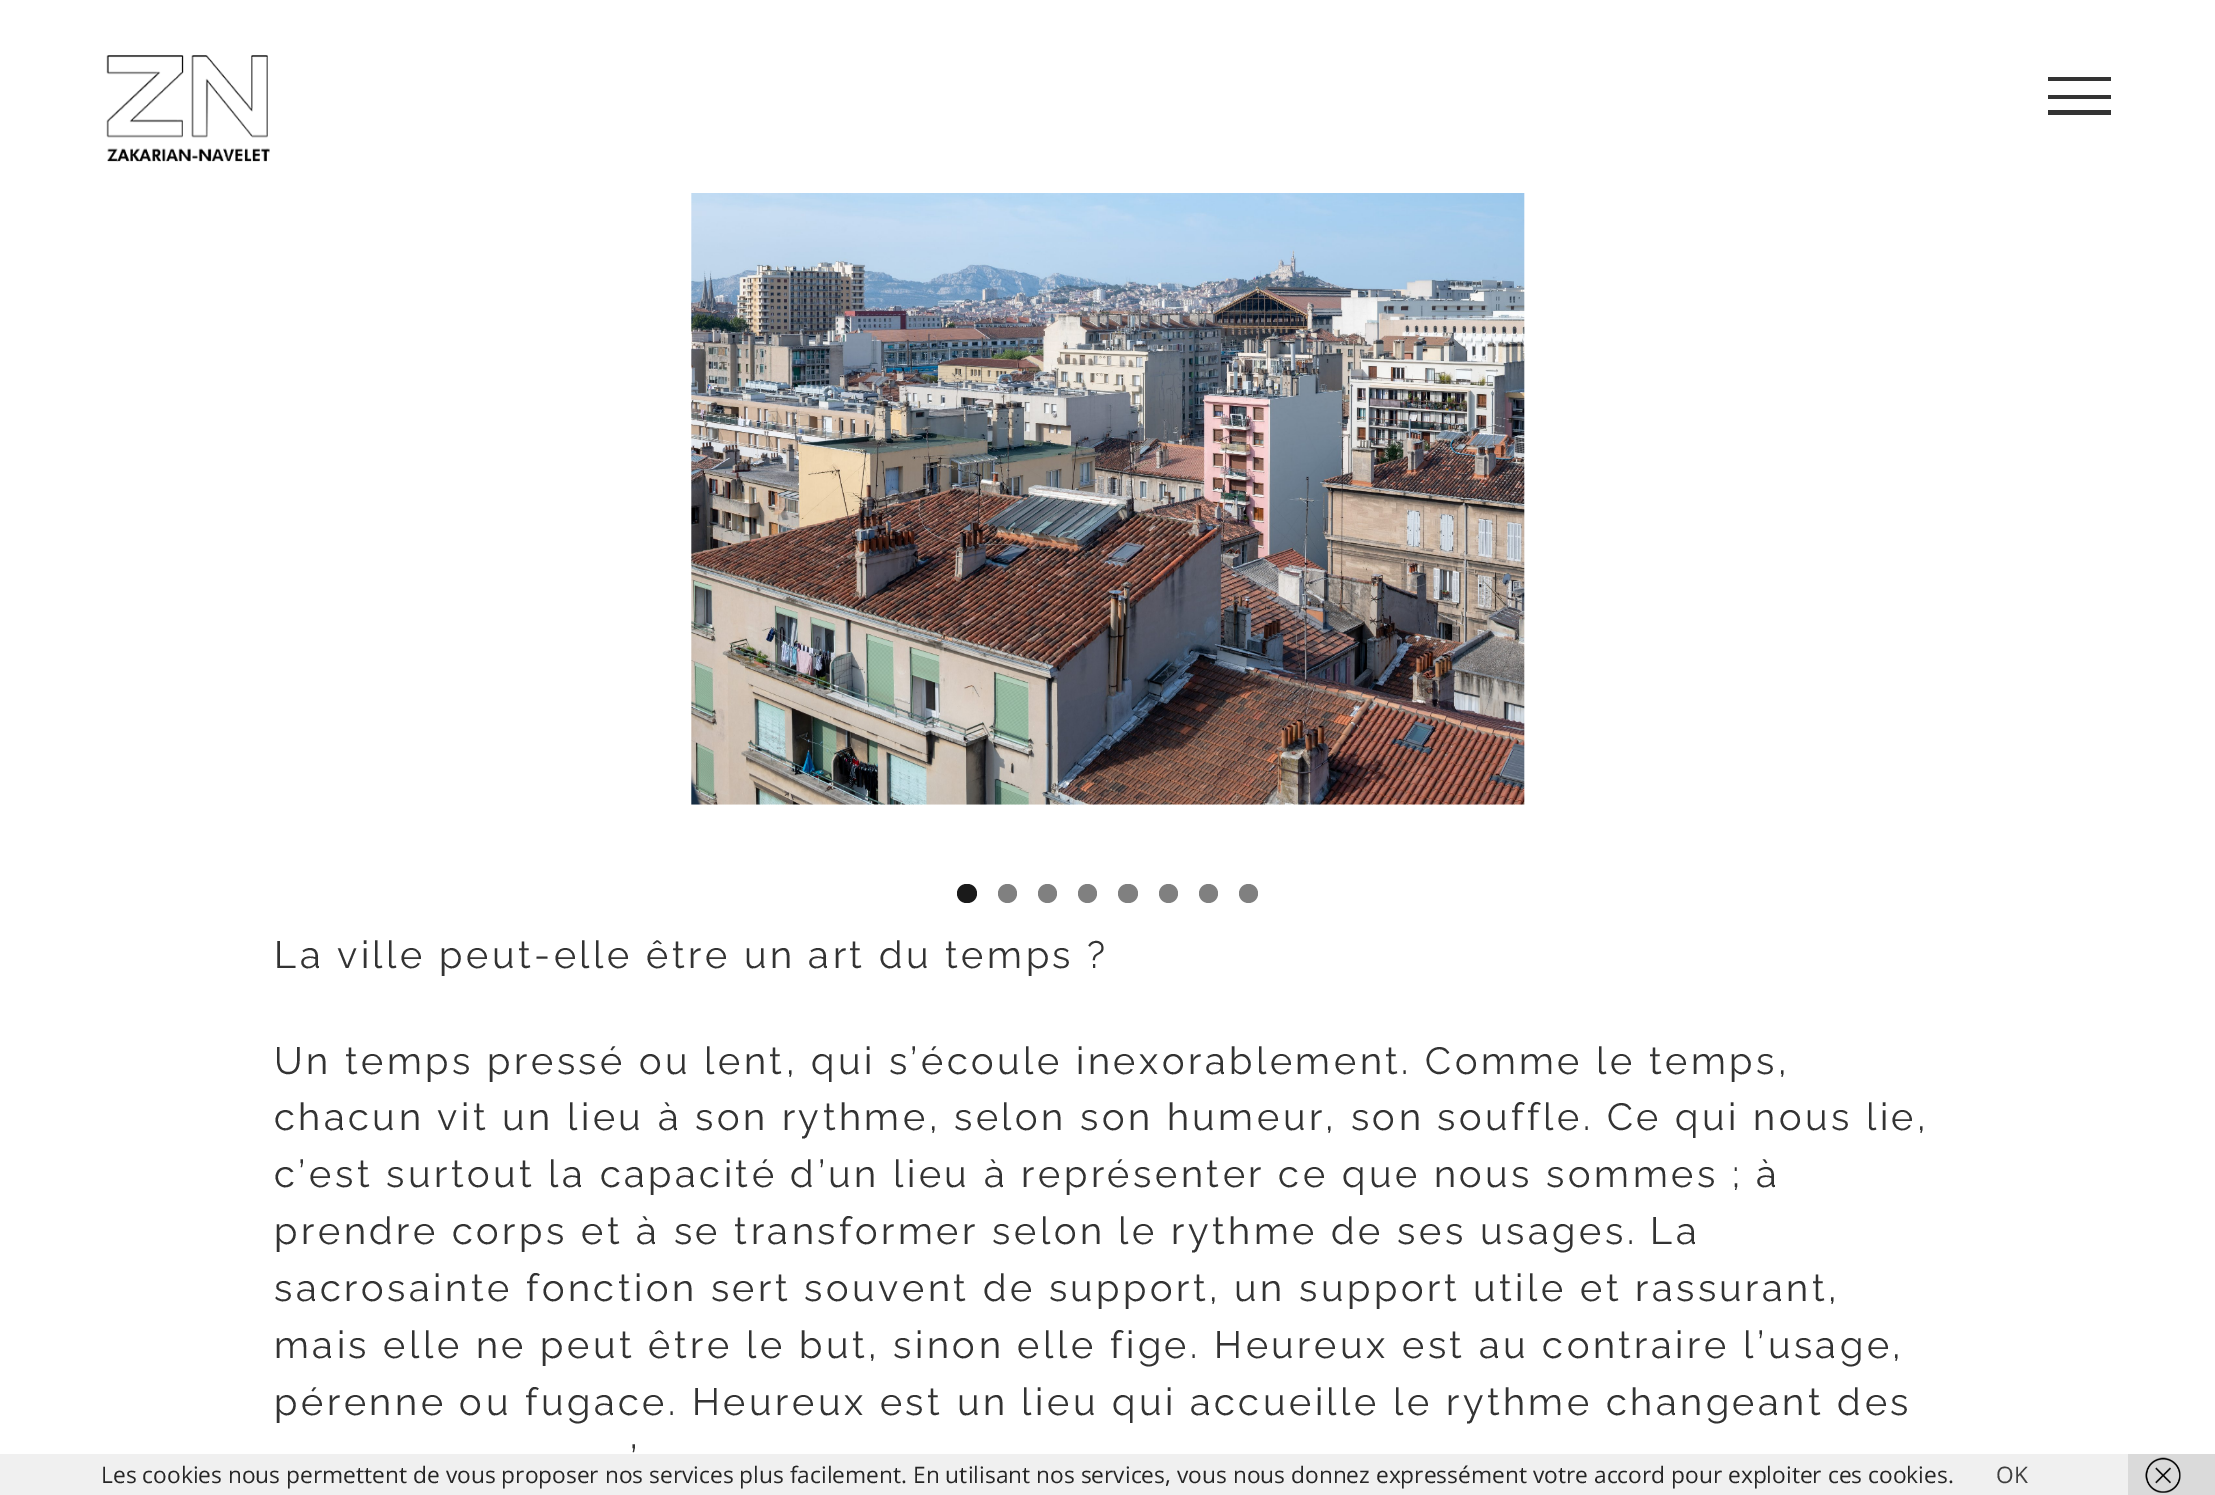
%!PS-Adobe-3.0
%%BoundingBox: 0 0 2215 1495
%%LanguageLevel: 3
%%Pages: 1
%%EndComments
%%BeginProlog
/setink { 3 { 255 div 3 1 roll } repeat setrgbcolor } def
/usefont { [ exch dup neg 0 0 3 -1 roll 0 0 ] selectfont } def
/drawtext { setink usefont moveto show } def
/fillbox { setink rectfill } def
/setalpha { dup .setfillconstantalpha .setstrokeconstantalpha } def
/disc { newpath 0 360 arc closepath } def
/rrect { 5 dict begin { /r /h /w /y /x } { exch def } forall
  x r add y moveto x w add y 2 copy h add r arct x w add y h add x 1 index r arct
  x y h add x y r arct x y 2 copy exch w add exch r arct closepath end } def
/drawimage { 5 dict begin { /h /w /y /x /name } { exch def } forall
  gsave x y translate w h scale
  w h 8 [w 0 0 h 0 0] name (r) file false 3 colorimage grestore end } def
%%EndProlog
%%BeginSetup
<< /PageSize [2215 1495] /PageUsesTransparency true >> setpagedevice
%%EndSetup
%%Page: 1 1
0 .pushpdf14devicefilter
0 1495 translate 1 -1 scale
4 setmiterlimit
0 0 2215 1495 255 255 255 fillbox
(assets/img1.rgb) 106 55 164 107 drawimage
2048 77 63 4 51 51 51 fillbox
2048 95 63 4 51 51 51 fillbox
2048 110 63 5 51 51 51 fillbox
(assets/img2.rgb) 691 193 834 612 drawimage
26 26 26 setink
957 884 20 19 9.5 rrect fill
128 128 128 setink
1007.5 893.5 9.5 disc fill
1047.5 893.5 9.5 disc fill
1087.5 893.5 9.5 disc fill
1118 884 20 19 9.5 rrect fill
1168.5 893.5 9.5 disc fill
1208.5 893.5 9.5 disc fill
1248.5 893.5 9.5 disc fill
/Raleway-Regular 37.95 usefont
51 51 51 setink
274 968 moveto 3.5 0 (La ville peut-elle être un art du temps ?) ashow
274 1074 moveto -0.1 0 32 3.5 0 (Un temps pressé ou lent, qui s’écoule inexorablement. Comme le temps,) awidthshow
274 1130 moveto 3.5 0 (chacun vit un lieu à son rythme, selon son humeur, son souffle. Ce qui nous lie,) ashow
274 1187 moveto 3.5 0 (c’est surtout la capacité d’un lieu à représenter ce que nous sommes ; à) ashow
274 1244 moveto 3.5 0 (prendre corps et à se transformer selon le rythme de ses usages. La) ashow
274 1301 moveto -0.1 0 32 3.5 0 (sacrosainte fonction sert souvent de support, un support utile et rassurant,) awidthshow
274 1358 moveto 3.5 0 (mais elle ne peut être le but, sinon elle fige. Heureux est au contraire l’usage,) ashow
274 1415 moveto 3.5 0 (pérenne ou fugace. Heureux est un lieu qui accueille le rythme changeant des) ashow
630 1472 moveto 3.5 0 (’) ashow
0.9 setalpha
0 1454 2128 41 238 238 238 fillbox
1 setalpha
(Les cookies nous permettent de vous proposer nos services plus facilement. En utilisant nos services, vous nous donnez expressément votre accord pour exploiter ces cookies.) 101 1483 /OpenSans-Regular 22.75 38 38 38 drawtext
(OK) 1996 1483 /OpenSans-Regular 22.75 63 63 63 drawtext
2128 1454 87 41 218 218 218 fillbox
(assets/img3.rgb) 2145 1457 36 36 drawimage
.poppdf14devicefilter showpage
%%EOF
